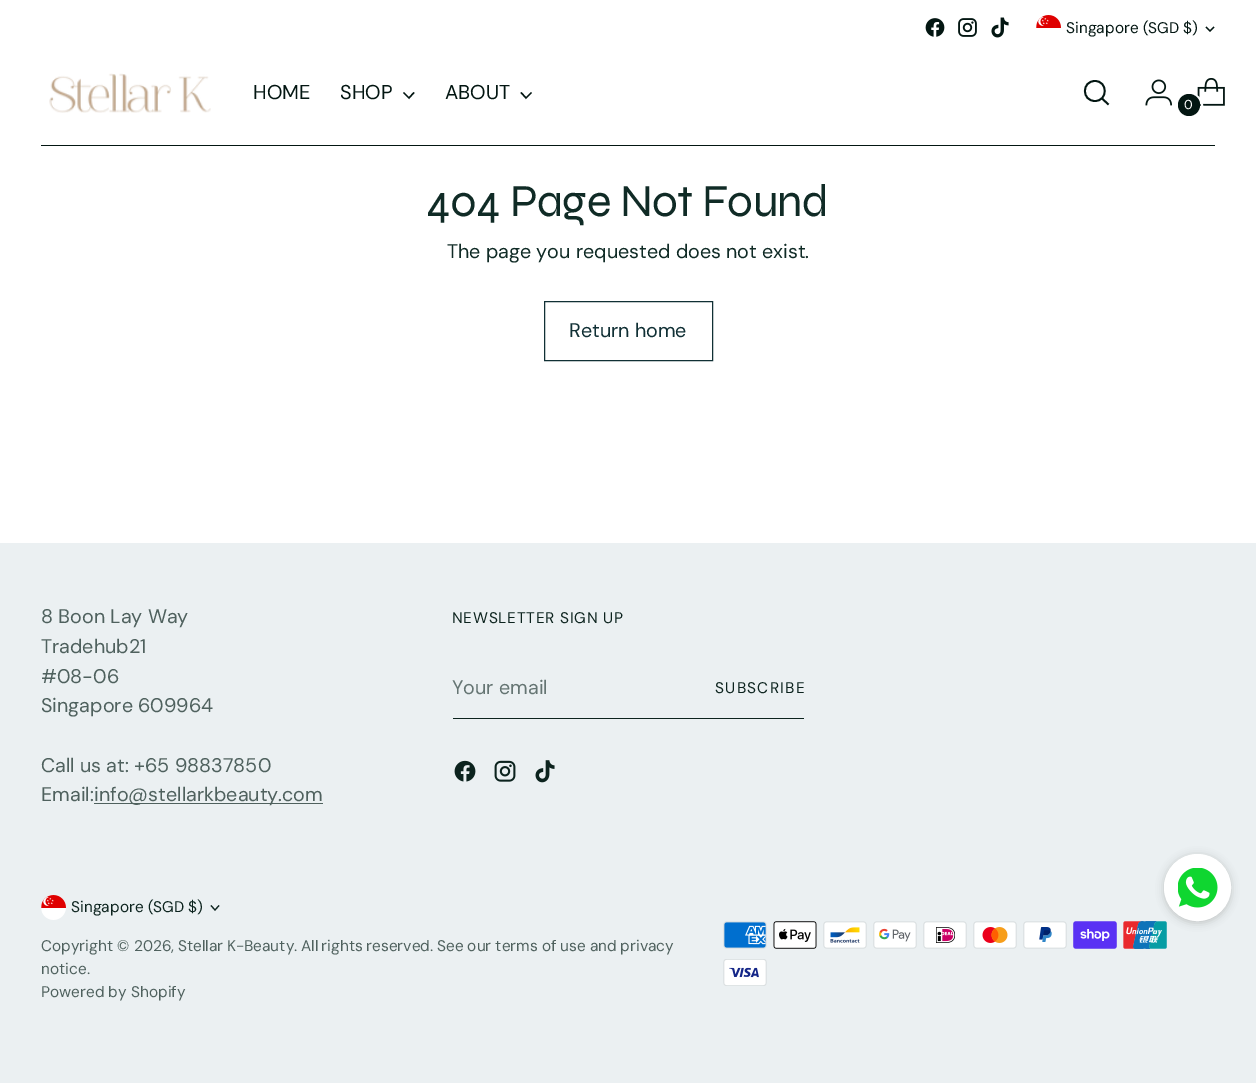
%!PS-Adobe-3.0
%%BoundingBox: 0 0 1256 1083
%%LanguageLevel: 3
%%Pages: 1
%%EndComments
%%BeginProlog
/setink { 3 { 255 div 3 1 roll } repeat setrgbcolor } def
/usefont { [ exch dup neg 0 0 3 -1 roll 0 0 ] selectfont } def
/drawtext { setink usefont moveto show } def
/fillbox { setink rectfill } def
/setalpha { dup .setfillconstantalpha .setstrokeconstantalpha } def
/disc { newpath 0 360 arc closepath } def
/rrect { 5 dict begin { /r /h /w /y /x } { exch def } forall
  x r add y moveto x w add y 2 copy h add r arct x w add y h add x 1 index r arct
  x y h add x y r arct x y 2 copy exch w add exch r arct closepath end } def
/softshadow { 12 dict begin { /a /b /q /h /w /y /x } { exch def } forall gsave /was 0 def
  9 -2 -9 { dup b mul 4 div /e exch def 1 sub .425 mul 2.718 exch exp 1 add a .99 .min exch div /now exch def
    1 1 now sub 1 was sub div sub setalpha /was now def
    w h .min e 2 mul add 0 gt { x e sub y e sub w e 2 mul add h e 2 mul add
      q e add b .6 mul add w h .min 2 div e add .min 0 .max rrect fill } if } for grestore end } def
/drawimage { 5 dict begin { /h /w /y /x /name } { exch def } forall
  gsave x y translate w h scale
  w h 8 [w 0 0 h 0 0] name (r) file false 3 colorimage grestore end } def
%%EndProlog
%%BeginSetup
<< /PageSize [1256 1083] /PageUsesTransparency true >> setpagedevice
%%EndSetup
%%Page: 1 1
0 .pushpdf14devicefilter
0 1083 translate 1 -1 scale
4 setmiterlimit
0 0 1256 1083 255 255 255 fillbox
41 145 1174 1 3 22 18 fillbox
(assets/img1.rgb) 925 18 20 19 drawimage
(assets/img2.rgb) 958 18 19 19 drawimage
(assets/img3.rgb) 991 17 18 21 drawimage
(assets/img4.rgb) 1036 15 25 13 drawimage
(Singapore \(SGD) 1066 33 /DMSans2-Regular 15.4 3 22 18 drawtext
($\)) 1183 33 /DMSans2-Regular 15.4 3 22 18 drawtext
1.1 setlinewidth
1206 27 moveto 1210 31 lineto 1214 27 lineto stroke
(assets/img5.rgb) 49 73 162 40 drawimage
(HOME) 253 99 /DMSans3-Regular 20 3 22 18 drawtext
(SHOP) 340 99 /DMSans3-Regular 20 3 22 18 drawtext
1.4 setlinewidth
403.5 92.5 moveto 409 98 lineto 414 92.5 lineto stroke
(ABOUT) 445 99 /DMSans3-Regular 20 3 22 18 drawtext
521 92.5 moveto 526 98 lineto 531.5 92.5 lineto stroke
1.8 setlinewidth
1 setlinecap
1095 101 moveto 1108 101 1108 81 1095 81 curveto 1081.5 81 1081.5 101 1095 101 curveto closepath stroke
0 setlinecap
1102 98.5 moveto 1108.5 104.5 lineto stroke
(assets/img6.rgb) 1145 79 27 27 drawimage
(assets/img7.rgb) 1197 78 28 28 drawimage
255 255 255 setink
2 setlinewidth
1177 94 25 24 12 rrect stroke
3 22 18 setink
1189 105 11 disc fill
(0) 1184 109 /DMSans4-Regular 13 255 255 255 drawtext
/Syne-Regular 45.75 usefont
16 43 38 setink
426 216 moveto -0.5 0 (404 Page Not Found) ashow
(The page you requested does not exist.) 447 258 /DMSans-Regular 19.75 16 43 38 drawtext
17 48 53 setink
1 setlinewidth
544.5 301.5 168 59 rectstroke
(Return home) 569 337 /DMSans-Regular 19.75 17 48 53 drawtext
0 543 1256 540 235 240 242 fillbox
(8 Boon Lay Way) 41 623 /DMSans-Regular 19.75 79 97 94 drawtext
(Tradehub21) 41 653 /DMSans-Regular 19.75 79 97 94 drawtext
(#08-06) 41 683 /DMSans-Regular 19.75 79 97 94 drawtext
(Singapore 609964) 41 712 /DMSans-Regular 19.75 79 97 94 drawtext
(Call us at: +65 98837850) 41 772 /DMSans-Regular 19.75 79 97 94 drawtext
(Email:) 41 801 /DMSans-Regular 19.75 79 97 94 drawtext
94 803 229 1 79 97 94 fillbox
(info@stellarkbeauty.com) 94 801 /DMSans-Regular 19.75 79 97 94 drawtext
/DMSans2-Regular 15.4 usefont
12 35 30 setink
452 623 moveto 0.75 0 (NEWSLETTER SIGN UP) ashow
453 718 351 1 12 35 30 fillbox
(Your email) 452 694 /DMSans-Regular 19.75 101 117 115 drawtext
/DMSans2-Regular 15.4 usefont
12 35 30 setink
715 693 moveto 1.25 0 (SUBSCRIBE) ashow
(assets/img8.rgb) 454 760 22 22 drawimage
(assets/img9.rgb) 494 760 22 22 drawimage
(assets/img10.rgb) 535 760 20 23 drawimage
(assets/img11.rgb) 41 895 25 25 drawimage
(Singapore \(SGD) 71 912 /DMSans2-Regular 15.4 12 35 30 drawtext
($\)) 188 912 /DMSans2-Regular 15.4 12 35 30 drawtext
1.1 setlinewidth
211 905.5 moveto 215 910 lineto 219 905.5 lineto stroke
(Copyright © 2026,) 41 951 /DMSans2-Regular 15.4 79 97 94 drawtext
178 951 moveto -1 0 32 (Stellar K-Beauty) widthshow
(.) 294 951 /DMSans2-Regular 15.4 79 97 94 drawtext
301 951 moveto -1 0 32 (All rights reserved.) widthshow
437 951 moveto -0.25 0 32 (See our terms of use and privacy) widthshow
(notice.) 41 974 /DMSans2-Regular 15.4 79 97 94 drawtext
(Powered by Shopify) 41 997 /DMSans2-Regular 15.4 79 97 94 drawtext
(assets/img12.rgb) 723 921 44 28 drawimage
(assets/img13.rgb) 773 921 44 28 drawimage
(assets/img14.rgb) 823 921 44 28 drawimage
(assets/img15.rgb) 873 921 44 28 drawimage
(assets/img16.rgb) 923 921 44 28 drawimage
(assets/img17.rgb) 973 921 44 28 drawimage
(assets/img18.rgb) 1023 921 44 28 drawimage
(assets/img19.rgb) 1073 921 44 28 drawimage
(assets/img20.rgb) 1123 921 44 28 drawimage
(assets/img21.rgb) 723 959 44 27 drawimage
27 27 27 setink
1164 855 67 68 33.5 4 0.2 softshadow
255 255 255 setink
1197.5 887.5 33 disc gsave fill grestore
1 setlinewidth
stroke
(assets/img22.rgb) 1178 868 40 40 drawimage
.poppdf14devicefilter showpage
%%EOF
